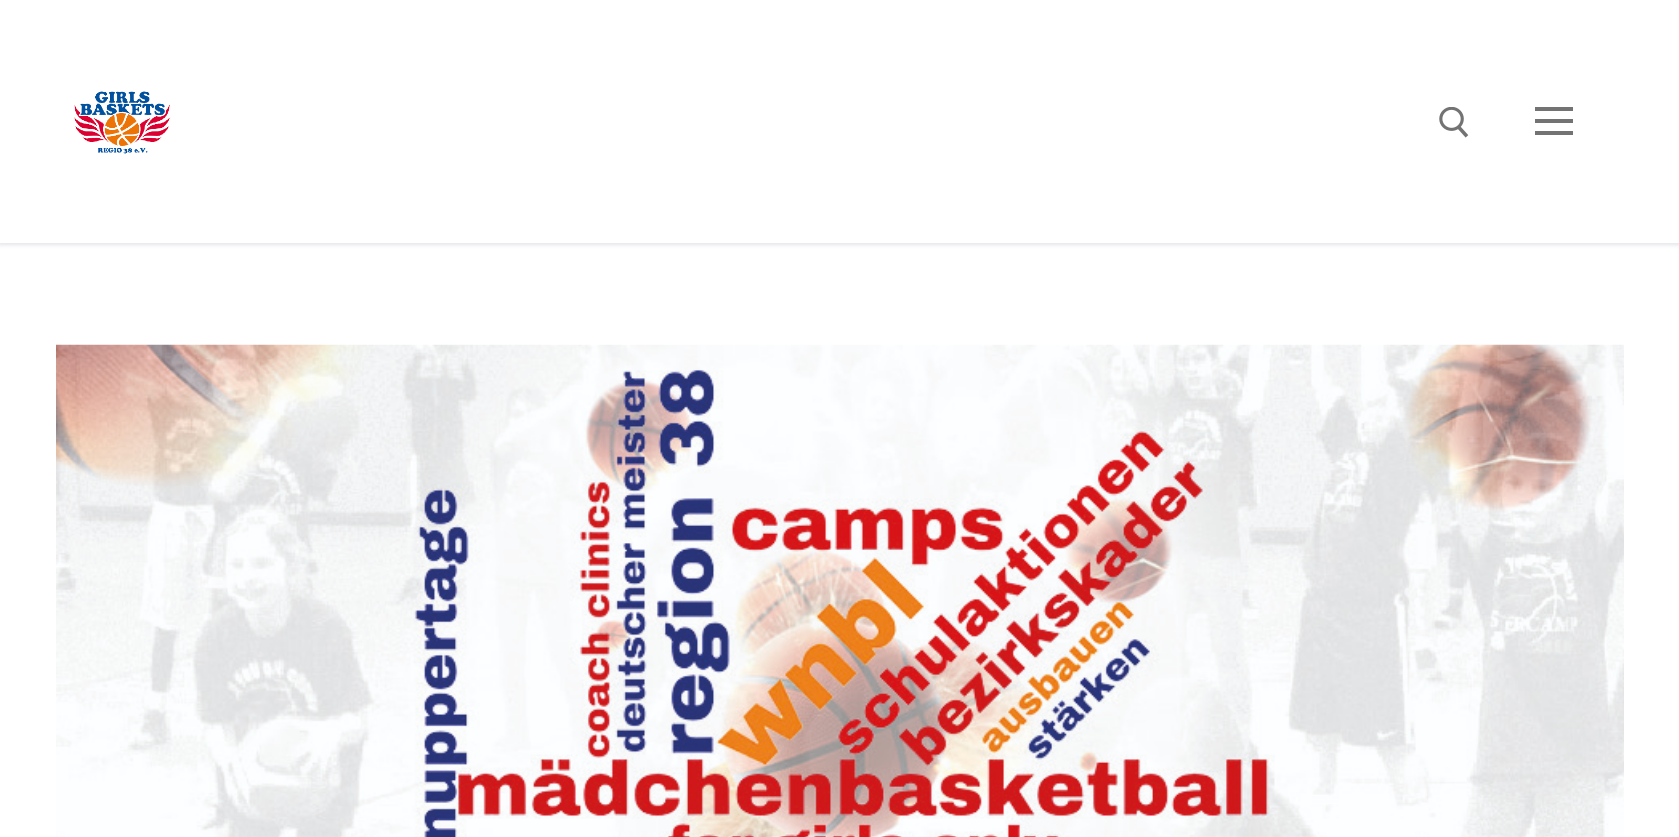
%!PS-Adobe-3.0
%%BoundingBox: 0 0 1679 837
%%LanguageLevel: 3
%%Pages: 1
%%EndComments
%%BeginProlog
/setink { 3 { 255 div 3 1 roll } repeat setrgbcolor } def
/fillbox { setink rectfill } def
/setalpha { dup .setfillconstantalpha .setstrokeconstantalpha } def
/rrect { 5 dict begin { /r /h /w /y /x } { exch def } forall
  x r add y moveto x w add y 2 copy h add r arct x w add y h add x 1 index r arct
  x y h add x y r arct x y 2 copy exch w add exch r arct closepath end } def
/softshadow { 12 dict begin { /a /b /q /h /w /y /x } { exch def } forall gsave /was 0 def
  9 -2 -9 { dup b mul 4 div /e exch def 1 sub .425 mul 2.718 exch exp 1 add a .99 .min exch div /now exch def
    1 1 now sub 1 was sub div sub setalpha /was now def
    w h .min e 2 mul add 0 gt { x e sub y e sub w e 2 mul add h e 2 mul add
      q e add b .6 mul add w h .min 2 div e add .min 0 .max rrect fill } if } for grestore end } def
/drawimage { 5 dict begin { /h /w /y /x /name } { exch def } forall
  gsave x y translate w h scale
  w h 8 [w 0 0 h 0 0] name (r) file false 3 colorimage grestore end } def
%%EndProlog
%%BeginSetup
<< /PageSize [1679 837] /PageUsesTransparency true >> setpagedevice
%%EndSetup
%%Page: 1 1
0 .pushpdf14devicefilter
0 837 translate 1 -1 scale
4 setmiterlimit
0 0 1679 837 255 255 255 fillbox
gsave
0 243 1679 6 rectclip
225 229 234 setink
0 2 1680 243 0 2 1 softshadow
grestore
(assets/img1.rgb) 74 91 97 63 drawimage
(assets/img2.rgb) 1439 107 30 31 drawimage
1535 119 38 4 115 115 115 fillbox
1535 107 38 4 115 115 115 fillbox
1535 131 38 4 115 115 115 fillbox
(assets/img3.rgb) 56 344 1568 493 drawimage
.poppdf14devicefilter showpage
%%EOF
